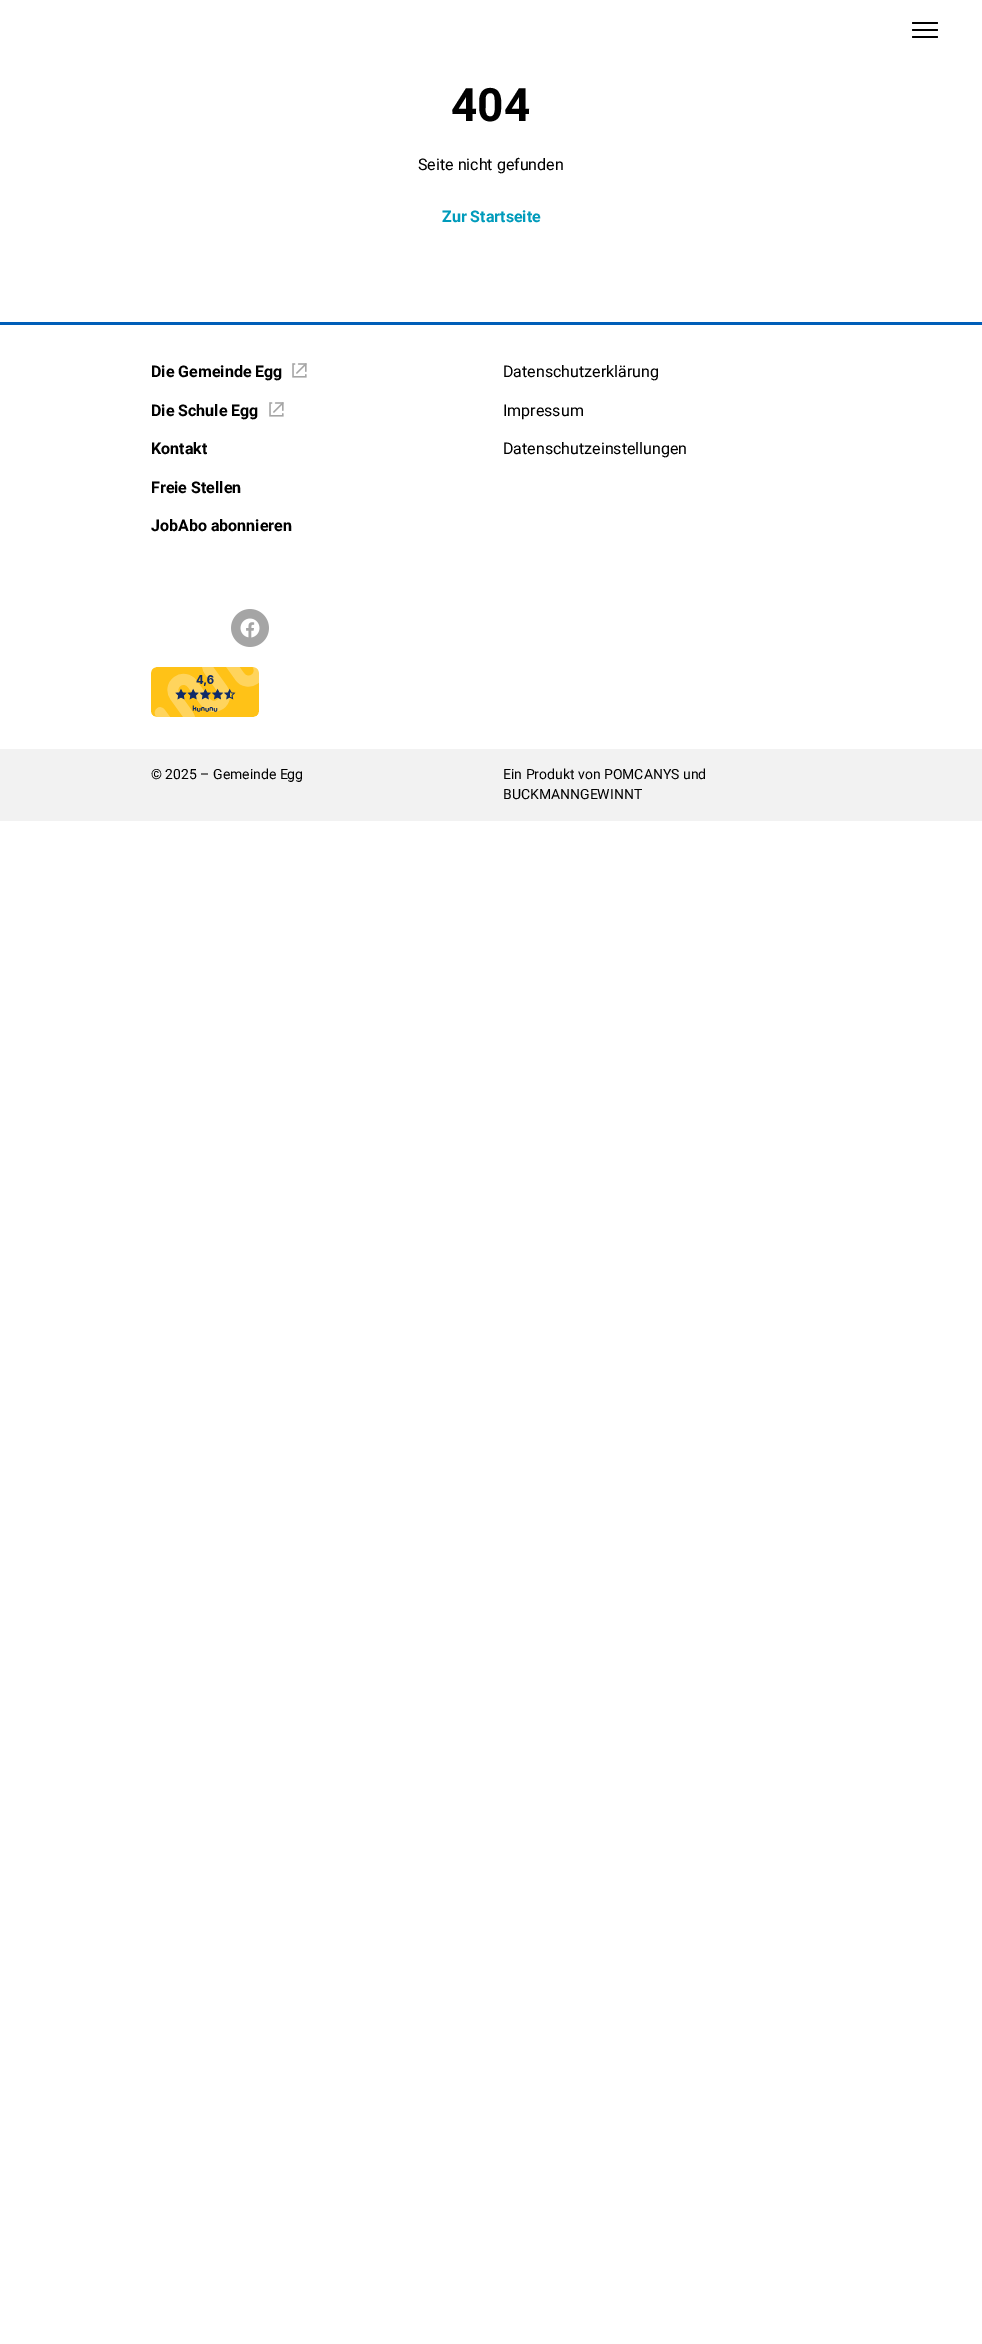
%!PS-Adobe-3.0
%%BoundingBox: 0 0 982 2344
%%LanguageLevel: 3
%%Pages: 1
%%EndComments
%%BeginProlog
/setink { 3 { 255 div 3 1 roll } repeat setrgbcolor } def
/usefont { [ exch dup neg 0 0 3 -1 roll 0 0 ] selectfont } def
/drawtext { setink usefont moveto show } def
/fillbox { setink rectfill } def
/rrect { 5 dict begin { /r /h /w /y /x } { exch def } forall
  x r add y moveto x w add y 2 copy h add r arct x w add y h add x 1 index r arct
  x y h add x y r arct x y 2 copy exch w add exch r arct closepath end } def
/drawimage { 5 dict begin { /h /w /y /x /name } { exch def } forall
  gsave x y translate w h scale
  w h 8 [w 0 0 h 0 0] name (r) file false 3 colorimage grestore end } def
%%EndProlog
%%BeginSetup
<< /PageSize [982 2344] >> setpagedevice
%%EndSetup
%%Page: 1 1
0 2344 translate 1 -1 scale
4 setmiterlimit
0 0 982 2344 255 255 255 fillbox
0 0 0 setink
912 22 26 2 1 rrect fill
912 29 26 2 1 rrect fill
912 36 26 2 1 rrect fill
(404) 451 121 /Roboto-Bold 46 0 0 0 drawtext
(Seite nicht gefunden) 418 170 /Roboto-Regular 16 0 0 0 drawtext
(Zur Startseite) 442 222 /Roboto-Bold 16 0 155 187 drawtext
0 322 982 3 0 94 184 fillbox
(Die Gemeinde Egg) 151 377 /Roboto-Bold 16 0 0 0 drawtext
(assets/img1.rgb) 292 363 15 15 drawimage
(Die Schule Egg) 151 416 /Roboto-Bold 16 0 0 0 drawtext
(assets/img1.rgb) 269 402 15 15 drawimage
(Kontakt) 151 454 /Roboto-Bold 16 0 0 0 drawtext
(Freie Stellen) 151 493 /Roboto-Bold 16 0 0 0 drawtext
(JobAbo abonnieren) 151 531 /Roboto-Bold 16 0 0 0 drawtext
(Datenschutzerklärung) 503 377 /Roboto-Regular 16 0 0 0 drawtext
(Impressum) 503 416 /Roboto-Regular 16 0 0 0 drawtext
(Datenschutzeinstellungen) 503 454 /Roboto-Regular 16 0 0 0 drawtext
(assets/img2.rgb) 231 609 38 38 drawimage
(assets/img3.rgb) 151 667 108 50 drawimage
0 749 982 72 242 242 242 fillbox
(© 2025 – Gemeinde Egg) 151 779 /Roboto-Regular 14 0 0 0 drawtext
(Ein Produkt von POMCANYS) 503 779 /Roboto-Regular 14 0 0 0 drawtext
(und) 683 779 /Roboto-Regular 14 0 0 0 drawtext
(BUCKMANNGEWINNT) 503 799 /Roboto-Regular 14 0 0 0 drawtext
showpage
%%EOF
